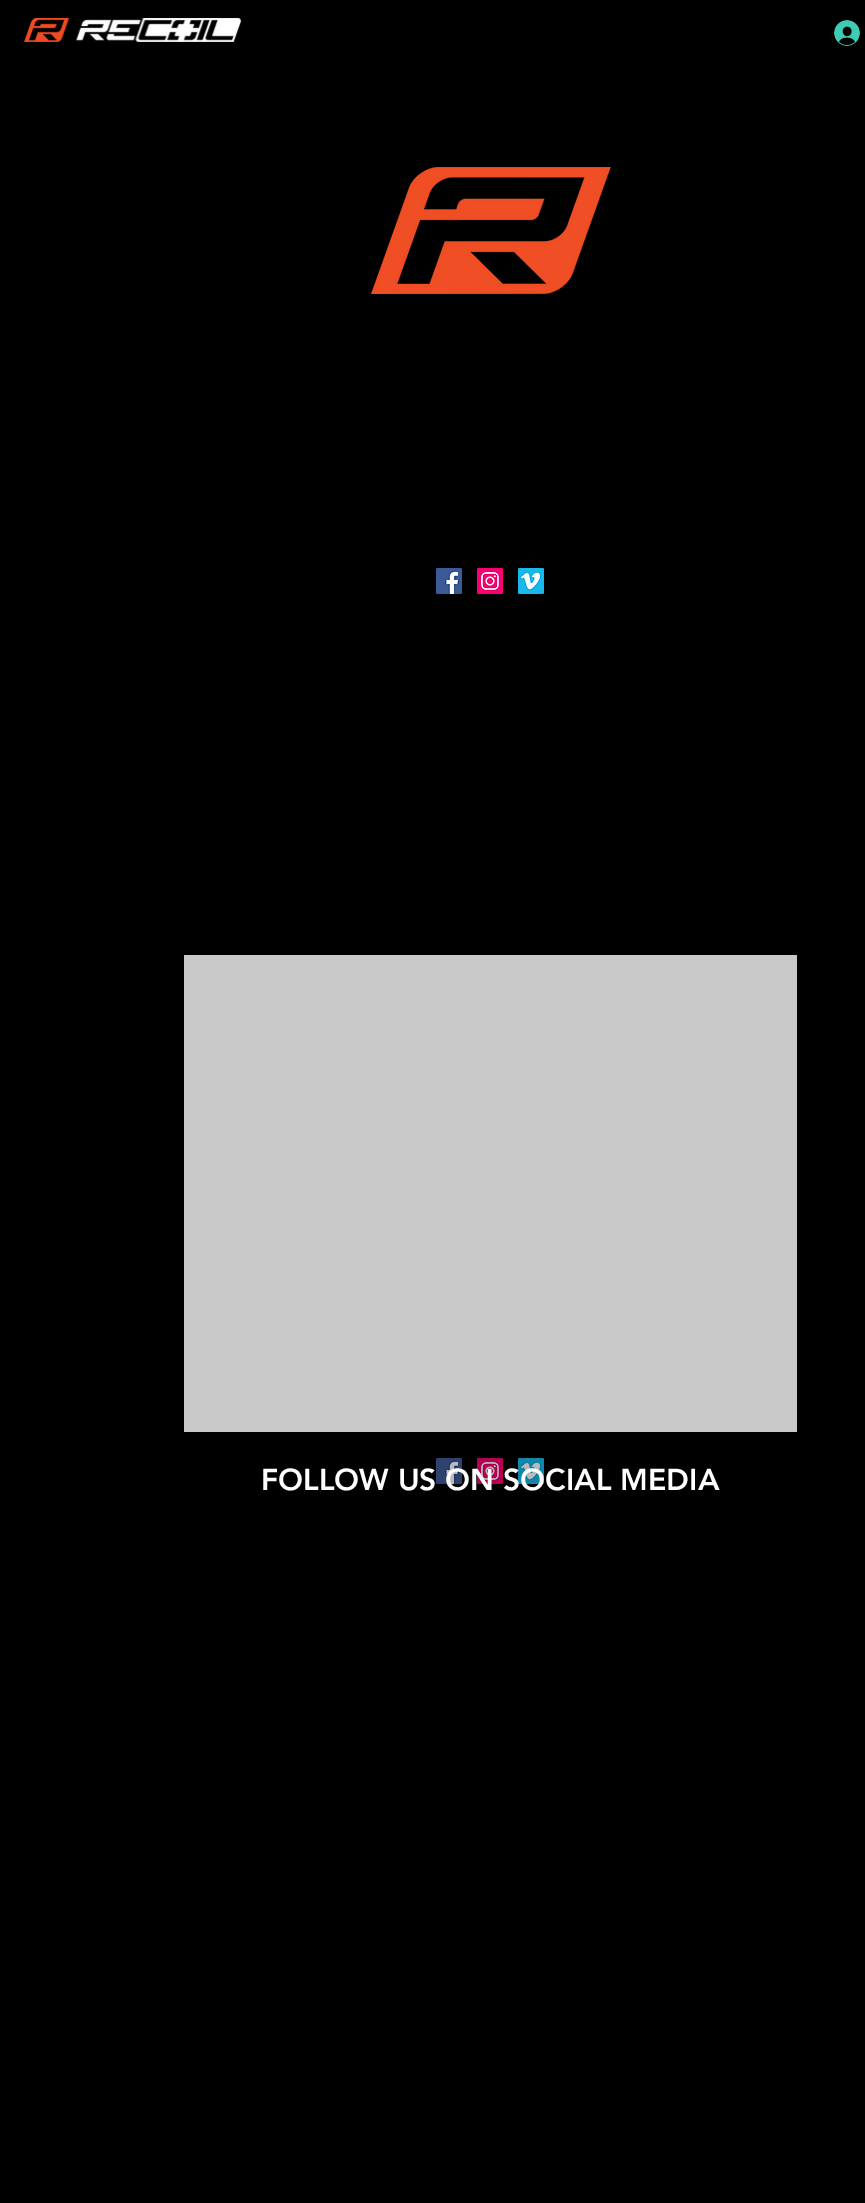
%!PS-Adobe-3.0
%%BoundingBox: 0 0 865 2203
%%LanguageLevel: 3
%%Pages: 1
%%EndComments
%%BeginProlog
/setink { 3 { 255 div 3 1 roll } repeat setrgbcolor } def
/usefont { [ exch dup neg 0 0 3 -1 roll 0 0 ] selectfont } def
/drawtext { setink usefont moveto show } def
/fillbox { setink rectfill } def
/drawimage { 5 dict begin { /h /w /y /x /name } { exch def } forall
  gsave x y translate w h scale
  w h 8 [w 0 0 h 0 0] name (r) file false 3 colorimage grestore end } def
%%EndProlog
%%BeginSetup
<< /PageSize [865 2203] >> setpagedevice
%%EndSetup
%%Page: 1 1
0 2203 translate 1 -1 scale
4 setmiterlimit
0 0 865 2203 0 0 0 fillbox
(assets/img1.rgb) 24 18 219 24 drawimage
(assets/img2.rgb) 834 20 26 26 drawimage
(assets/img3.rgb) 371 167 240 127 drawimage
(assets/img4.rgb) 436 568 26 26 drawimage
(assets/img5.rgb) 477 568 26 26 drawimage
(assets/img6.rgb) 518 568 26 26 drawimage
(assets/img7.rgb) 436 1458 26 26 drawimage
(assets/img8.rgb) 477 1458 26 26 drawimage
(assets/img9.rgb) 518 1458 26 26 drawimage
184 955 613 477 201 201 201 fillbox
(FOLLOW US ON SOCIAL MEDIA) 261 1490 /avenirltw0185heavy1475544-Black 30 255 255 255 drawtext
showpage
%%EOF
